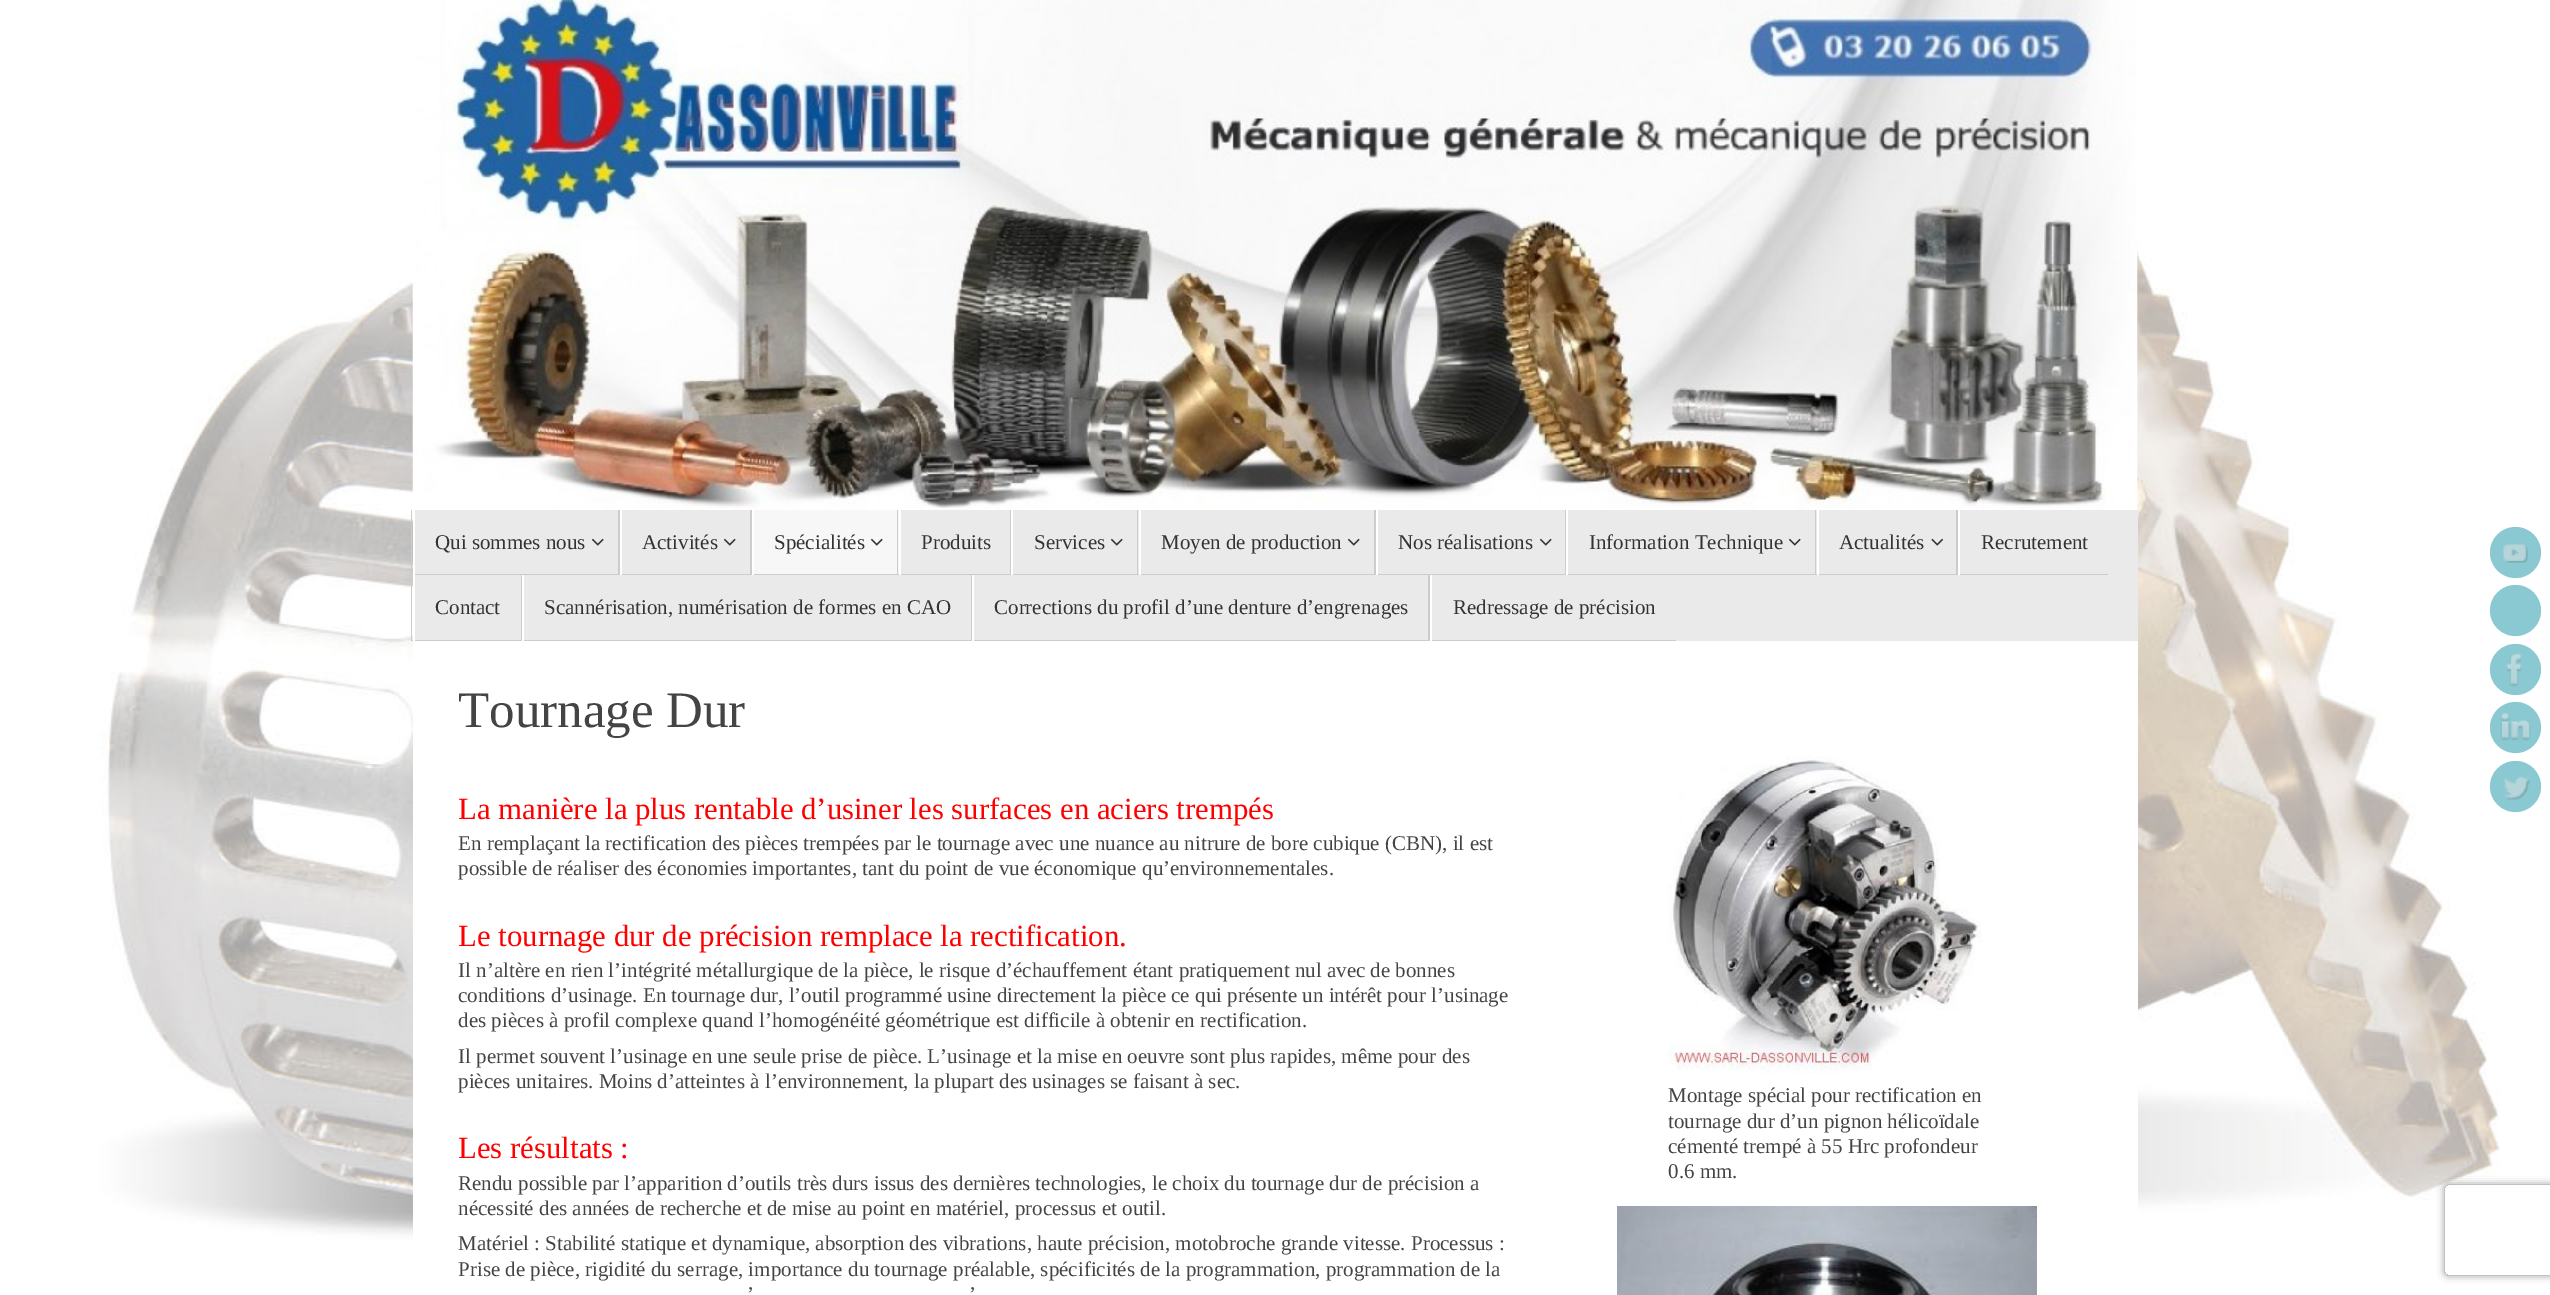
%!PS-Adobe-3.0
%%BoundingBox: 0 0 2550 1295
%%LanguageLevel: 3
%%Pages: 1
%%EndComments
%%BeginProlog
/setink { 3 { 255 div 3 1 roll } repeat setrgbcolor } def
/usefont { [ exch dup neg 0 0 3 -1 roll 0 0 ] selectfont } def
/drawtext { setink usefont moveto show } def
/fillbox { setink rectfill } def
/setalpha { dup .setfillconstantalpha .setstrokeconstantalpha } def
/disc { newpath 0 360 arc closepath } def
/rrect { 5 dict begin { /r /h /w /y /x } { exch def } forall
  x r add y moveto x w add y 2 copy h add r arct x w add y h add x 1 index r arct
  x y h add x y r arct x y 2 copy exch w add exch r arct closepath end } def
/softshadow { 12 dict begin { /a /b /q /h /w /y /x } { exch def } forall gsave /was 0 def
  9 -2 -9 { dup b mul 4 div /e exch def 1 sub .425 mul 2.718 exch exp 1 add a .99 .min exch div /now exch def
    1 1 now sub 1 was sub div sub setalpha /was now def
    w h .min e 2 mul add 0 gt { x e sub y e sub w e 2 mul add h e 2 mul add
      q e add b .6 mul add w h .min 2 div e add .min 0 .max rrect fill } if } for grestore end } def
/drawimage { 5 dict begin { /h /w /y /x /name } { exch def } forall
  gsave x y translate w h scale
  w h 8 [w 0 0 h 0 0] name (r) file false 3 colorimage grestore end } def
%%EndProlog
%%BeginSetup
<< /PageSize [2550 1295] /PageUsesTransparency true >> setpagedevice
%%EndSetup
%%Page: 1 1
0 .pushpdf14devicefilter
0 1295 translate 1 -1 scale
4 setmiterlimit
0 0 2550 1295 255 255 255 fillbox
(assets/img1.rgb) 99 0 2401 1240 drawimage
(assets/img2.rgb) 412 0 1726 510 drawimage
415 510 1723 131 234 234 234 fillbox
204 204 204 setink
411 510 moveto 411 575 lineto 618 575 lineto 618 574 lineto 412 574 lineto 412 510 lineto closepath fill
413 510 2 65 255 255 255 fillbox
(Qui sommes nous) 435 549 /LiberationSerif-Regular 21 51 51 51 drawtext
(assets/img3.rgb) 592 538 12 8 drawimage
204 204 204 setink
618 510 moveto 618 575 lineto 750 575 lineto 750 574 lineto 620 574 lineto 620 510 lineto closepath fill
620 510 2 65 255 255 255 fillbox
(Activités) 642 549 /LiberationSerif-Regular 21 51 51 51 drawtext
(assets/img3.rgb) 724 538 12 8 drawimage
754 510 145 64 247 247 247 fillbox
204 204 204 setink
750 510 moveto 750 575 lineto 897 575 lineto 897 574 lineto 752 574 lineto 752 510 lineto closepath fill
752 510 2 65 255 255 255 fillbox
(Spécialités) 774 549 /LiberationSerif-Regular 21 51 51 51 drawtext
(assets/img4.rgb) 871 538 12 8 drawimage
204 204 204 setink
897 510 moveto 897 575 lineto 1010 575 lineto 1010 574 lineto 898 574 lineto 898 510 lineto closepath fill
899 510 2 65 255 255 255 fillbox
(Produits) 921 549 /LiberationSerif-Regular 21 51 51 51 drawtext
204 204 204 setink
1010 510 moveto 1010 575 lineto 1137 575 lineto 1137 574 lineto 1011 574 lineto 1011 510 lineto closepath fill
1011 510 2 65 255 255 255 fillbox
(Services) 1034 549 /LiberationSerif-Regular 21 51 51 51 drawtext
(assets/img3.rgb) 1111 538 12 8 drawimage
204 204 204 setink
1137 510 moveto 1137 575 lineto 1374 575 lineto 1374 574 lineto 1138 574 lineto 1138 510 lineto closepath fill
1139 510 2 65 255 255 255 fillbox
(Moyen de production) 1161 549 /LiberationSerif-Regular 21 51 51 51 drawtext
(assets/img3.rgb) 1348 538 12 8 drawimage
204 204 204 setink
1374 510 moveto 1374 575 lineto 1565 575 lineto 1565 574 lineto 1376 574 lineto 1376 510 lineto closepath fill
1376 510 2 65 255 255 255 fillbox
(Nos réalisations) 1398 549 /LiberationSerif-Regular 21 51 51 51 drawtext
(assets/img3.rgb) 1540 538 12 8 drawimage
204 204 204 setink
1565 510 moveto 1565 575 lineto 1815 575 lineto 1815 574 lineto 1566 574 lineto 1566 510 lineto closepath fill
1566 510 2 65 255 255 255 fillbox
(Information Technique) 1589 549 /LiberationSerif-Regular 21 51 51 51 drawtext
(assets/img3.rgb) 1789 538 12 8 drawimage
204 204 204 setink
1815 510 moveto 1815 575 lineto 1956 575 lineto 1956 574 lineto 1816 574 lineto 1816 510 lineto closepath fill
1817 510 2 65 255 255 255 fillbox
(Actualités) 1839 549 /LiberationSerif-Regular 21 51 51 51 drawtext
(assets/img5.rgb) 1931 538 13 8 drawimage
204 204 204 setink
1956 510 moveto 1956 575 lineto 2108 575 lineto 2108 574 lineto 1958 574 lineto 1958 510 lineto closepath fill
1958 510 2 65 255 255 255 fillbox
(Recrutement) 1981 549 /LiberationSerif-Regular 21 51 51 51 drawtext
204 204 204 setink
411 575 moveto 411 641 lineto 521 641 lineto 521 640 lineto 412 640 lineto 412 575 lineto closepath fill
413 575 2 66 255 255 255 fillbox
(Contact) 435 614 /LiberationSerif-Regular 21 51 51 51 drawtext
204 204 204 setink
521 575 moveto 521 641 lineto 971 641 lineto 971 640 lineto 522 640 lineto 522 575 lineto closepath fill
522 575 2 66 255 255 255 fillbox
(Scannérisation, numérisation de formes en CAO) 544 614 /LiberationSerif-Regular 21 51 51 51 drawtext
204 204 204 setink
971 575 moveto 971 641 lineto 1428 641 lineto 1428 640 lineto 972 640 lineto 972 575 lineto closepath fill
972 575 2 66 255 255 255 fillbox
(Corrections du profil d’une denture d’engrenages) 994 614 /LiberationSerif-Regular 21 51 51 51 drawtext
204 204 204 setink
1428 575 moveto 1428 641 lineto 1676 641 lineto 1676 640 lineto 1430 640 lineto 1430 575 lineto closepath fill
1430 575 2 66 255 255 255 fillbox
(Redressage de précision) 1453 614 /LiberationSerif-Regular 21 51 51 51 drawtext
139 201 210 setink
2515.5 552.5 25.5 disc fill
(assets/img6.rgb) 2503 544 25 19 drawimage
2515.5 610.5 25.5 disc fill
2515.5 669.5 25.5 disc fill
(assets/img7.rgb) 2506 653 16 34 drawimage
2515.5 727.5 25.5 disc fill
(assets/img8.rgb) 2500 712 31 29 drawimage
2515.5 786.5 25.5 disc fill
(assets/img9.rgb) 2504 776 26 24 drawimage
413 641 1725 599 255 255 255 fillbox
(Tournage Dur) 458 727 /LiberationSerif-Regular 51 68 68 68 drawtext
(La manière la plus rentable d’usiner les surfaces en aciers trempés) 458 819 /LiberationSerif-Regular 30.8 255 0 0 drawtext
(En remplaçant la rectification des pièces trempées par le tournage avec une nuance au nitrure de bore cubique \(CBN\), il est) 458 850 /LiberationSerif-Regular 21 68 68 68 drawtext
(possible de réaliser des économies importantes, tant du point de vue économique qu’environnementales.) 458 875 /LiberationSerif-Regular 21 68 68 68 drawtext
(Le tournage dur de précision remplace la rectification.) 458 946 /LiberationSerif-Regular 30.8 255 0 0 drawtext
(Il n’altère en rien l’intégrité métallurgique de la pièce, le risque d’échauffement étant pratiquement nul avec de bonnes) 458 977 /LiberationSerif-Regular 21 68 68 68 drawtext
(conditions d’usinage. En tournage dur, l’outil programmé usine directement la pièce ce qui présente un intérêt pour l’usinage) 458 1002 /LiberationSerif-Regular 21 68 68 68 drawtext
(des pièces à profil complexe quand l’homogénéité géométrique est difficile à obtenir en rectification.) 458 1027 /LiberationSerif-Regular 21 68 68 68 drawtext
(Il permet souvent l’usinage en une seule prise de pièce. L’usinage et la mise en oeuvre sont plus rapides, même pour des) 458 1063 /LiberationSerif-Regular 21 68 68 68 drawtext
(pièces unitaires. Moins d’atteintes à l’environnement, la plupart des usinages se faisant à sec.) 458 1088 /LiberationSerif-Regular 21 68 68 68 drawtext
(Les résultats :) 458 1158 /LiberationSerif-Regular 30.8 255 0 0 drawtext
(Rendu possible par l’apparition d’outils très durs issus des dernières technologies, le choix du tournage dur de précision a) 458 1190 /LiberationSerif-Regular 21 68 68 68 drawtext
(nécessité des années de recherche et de mise au point en matériel, processus et outil.) 458 1215 /LiberationSerif-Regular 21 68 68 68 drawtext
(Matériel : Stabilité statique et dynamique, absorption des vibrations, haute précision, motobroche grande vitesse. Processus :) 458 1250 /LiberationSerif-Regular 21 68 68 68 drawtext
(Prise de pièce, rigidité du serrage, importance du tournage préalable, spécificités de la programmation, programmation de la) 458 1276 /LiberationSerif-Regular 21 68 68 68 drawtext
(’) 747 1301 /LiberationSerif-Regular 21 68 68 68 drawtext
(’) 969 1301 /LiberationSerif-Regular 21 68 68 68 drawtext
(assets/img10.rgb) 1668 756 314 318 drawimage
(Montage spécial pour rectification en) 1668 1102 /LiberationSerif-Regular 21 68 68 68 drawtext
(tournage dur d’un pignon hélicoïdale) 1668 1128 /LiberationSerif-Regular 21 68 68 68 drawtext
(cémenté trempé à 55 Hrc profondeur) 1668 1153 /LiberationSerif-Regular 21 68 68 68 drawtext
(0.6 mm.) 1668 1178 /LiberationSerif-Regular 21 68 68 68 drawtext
(assets/img11.rgb) 1617 1206 420 89 drawimage
gsave
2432 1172 moveto 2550 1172 lineto 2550 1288 lineto 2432 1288 lineto closepath 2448 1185 moveto 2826 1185 lineto 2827.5 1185 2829 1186.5 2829 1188 curveto 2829 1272 lineto 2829 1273.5 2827.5 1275 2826 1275 curveto 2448 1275 lineto 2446.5 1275 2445 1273.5 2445 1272 curveto 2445 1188 lineto 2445 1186.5 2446.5 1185 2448 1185 curveto closepath eoclip newpath
128 128 128 setink
2445 1185 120 90 3 4 1 softshadow
grestore
.poppdf14devicefilter showpage
%%EOF
